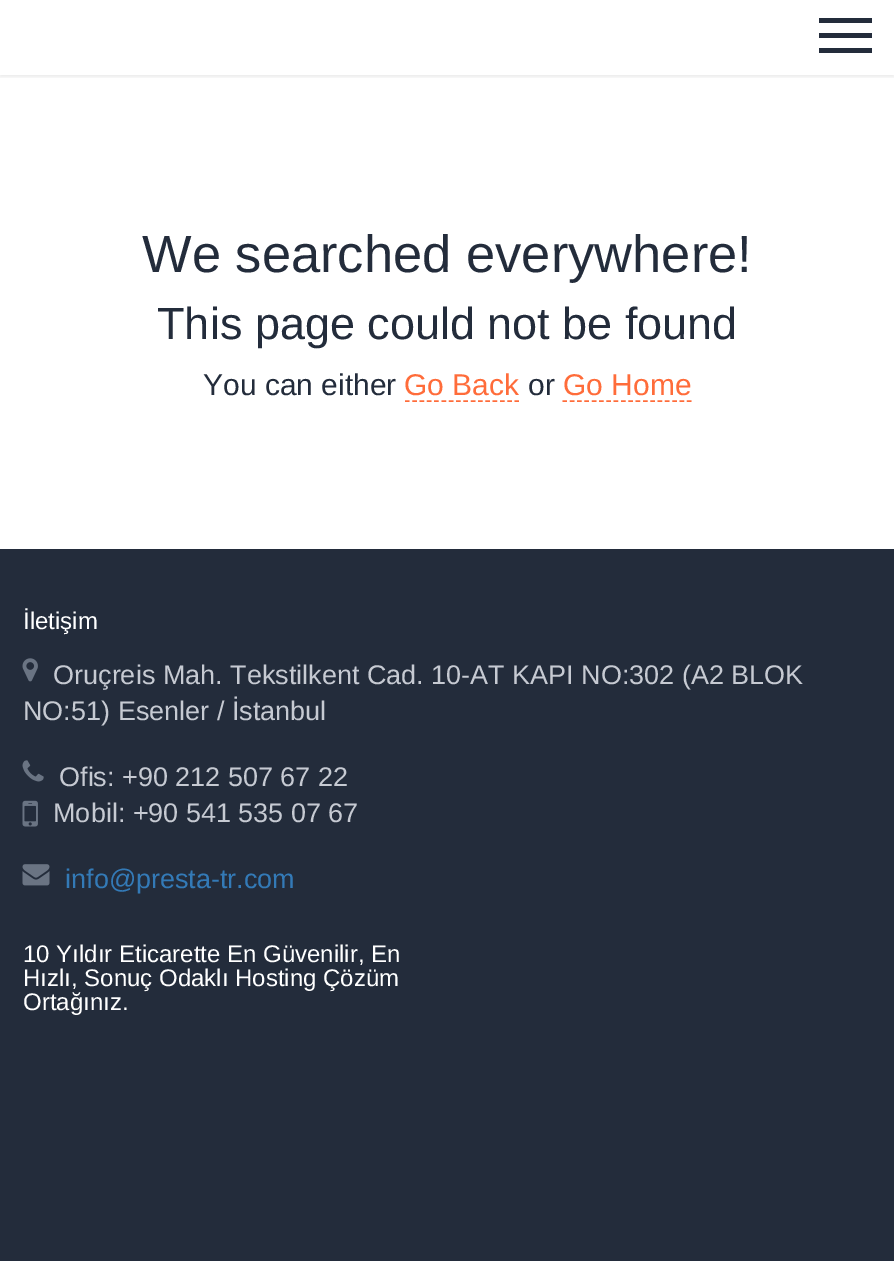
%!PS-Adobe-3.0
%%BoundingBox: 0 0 894 1261
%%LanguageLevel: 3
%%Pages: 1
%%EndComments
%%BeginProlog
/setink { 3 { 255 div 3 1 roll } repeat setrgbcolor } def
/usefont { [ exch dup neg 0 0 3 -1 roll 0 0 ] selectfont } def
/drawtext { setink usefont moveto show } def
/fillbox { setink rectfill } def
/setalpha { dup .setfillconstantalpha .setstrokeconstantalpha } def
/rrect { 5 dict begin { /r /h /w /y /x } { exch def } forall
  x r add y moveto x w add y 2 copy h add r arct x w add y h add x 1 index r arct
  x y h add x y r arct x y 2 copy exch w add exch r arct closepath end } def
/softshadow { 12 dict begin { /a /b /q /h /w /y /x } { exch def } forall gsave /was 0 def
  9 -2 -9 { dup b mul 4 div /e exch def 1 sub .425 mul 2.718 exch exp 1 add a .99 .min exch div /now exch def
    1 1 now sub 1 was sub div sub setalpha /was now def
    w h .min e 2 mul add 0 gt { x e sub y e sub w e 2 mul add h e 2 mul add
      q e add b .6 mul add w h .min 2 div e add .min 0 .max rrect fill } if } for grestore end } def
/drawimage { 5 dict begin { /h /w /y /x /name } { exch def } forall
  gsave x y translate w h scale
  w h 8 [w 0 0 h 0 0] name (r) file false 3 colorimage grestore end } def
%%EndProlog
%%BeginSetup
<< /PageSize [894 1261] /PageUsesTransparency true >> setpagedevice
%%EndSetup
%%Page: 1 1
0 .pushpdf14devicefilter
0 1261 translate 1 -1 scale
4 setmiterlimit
0 0 894 1261 255 255 255 fillbox
gsave
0 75 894 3 rectclip
0 0 0 setink
0 2 894 75 0 2 0.08 softshadow
grestore
819 18 53 5 35 44 59 fillbox
819 33 53 5 35 44 59 fillbox
819 48 53 5 35 44 59 fillbox
(We searched everywhere!) 142 272 /LiberationSans-Regular 52.5 35 44 59 drawtext
(This page could not be found) 157 339 /LiberationSans-Regular 45 35 44 59 drawtext
(You can either) 203 395 /LiberationSans-Regular 30 35 44 59 drawtext
(Go Back) 404 395 /LiberationSans-Regular 30 255 108 58 drawtext
1.5 setlinewidth
[4.5 2.81] 0 setdash
405 401 moveto 519 401 lineto stroke
(or) 528 395 /LiberationSans-Regular 30 35 44 59 drawtext
(Go Home) 563 395 /LiberationSans-Regular 30 255 108 58 drawtext
[4.5 2.82] 0 setdash
562.5 401 moveto 691.5 401 lineto stroke
0 549 894 712 35 44 59 fillbox
(İletişim) 23 629 /LiberationSans-Regular 24 255 255 255 drawtext
(assets/img1.rgb) 22 658 16 24 drawimage
(Oruçreis Mah. Tekstilkent Cad. 10-AT KAPI NO:302 \(A2 BLOK) 53 684 /LiberationSans-Regular 27 198 202 210 drawtext
(NO:51\) Esenler / İstanbul) 23 720 /LiberationSans-Regular 27 198 202 210 drawtext
(assets/img2.rgb) 22 760 22 22 drawimage
(Ofis: +90 212 507 67 22) 59 786 /LiberationSans-Regular 27 198 202 210 drawtext
(assets/img3.rgb) 22 800 16 27 drawimage
(Mobil: +90 541 535 07 67) 53 822 /LiberationSans-Regular 27 198 202 210 drawtext
(assets/img4.rgb) 22 864 28 22 drawimage
(info@presta-tr.com) 65 888 /LiberationSans-Regular 27 51 122 183 drawtext
(10 Yıldır Eticarette En Güvenilir, En) 23 962 /LiberationSans-Regular 24 255 255 255 drawtext
(Hızlı, Sonuç Odaklı Hosting Çözüm) 23 986 /LiberationSans-Regular 24 255 255 255 drawtext
(Ortağınız.) 23 1010 /LiberationSans-Regular 24 255 255 255 drawtext
.poppdf14devicefilter showpage
%%EOF
